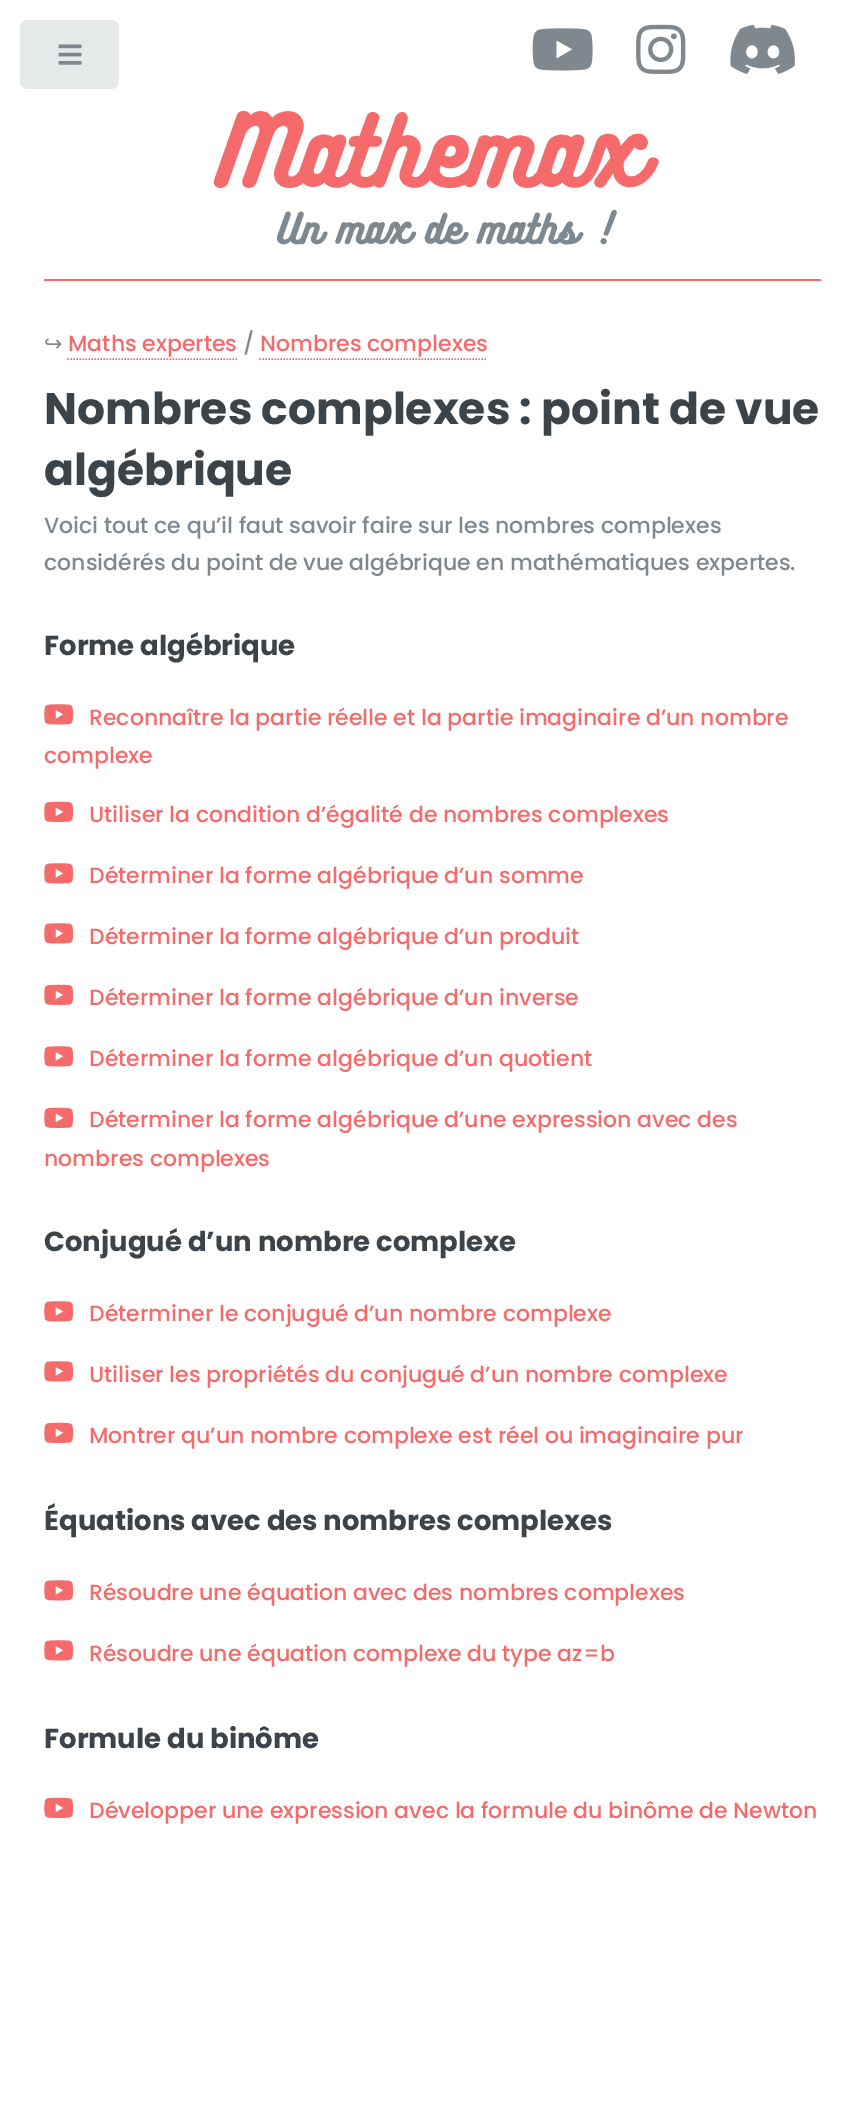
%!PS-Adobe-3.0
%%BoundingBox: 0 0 863 2126
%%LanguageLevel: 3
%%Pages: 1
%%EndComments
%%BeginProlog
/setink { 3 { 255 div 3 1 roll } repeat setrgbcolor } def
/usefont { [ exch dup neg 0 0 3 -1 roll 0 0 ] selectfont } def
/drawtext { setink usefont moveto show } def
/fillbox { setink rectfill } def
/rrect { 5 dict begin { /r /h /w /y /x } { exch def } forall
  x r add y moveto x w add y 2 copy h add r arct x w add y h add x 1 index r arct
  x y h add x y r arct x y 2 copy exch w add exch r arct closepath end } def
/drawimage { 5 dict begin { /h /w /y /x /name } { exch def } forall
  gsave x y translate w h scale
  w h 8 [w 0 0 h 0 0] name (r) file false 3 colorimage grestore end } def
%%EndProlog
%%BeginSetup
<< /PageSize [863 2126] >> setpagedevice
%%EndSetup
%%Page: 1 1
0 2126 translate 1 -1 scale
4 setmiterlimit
0 0 863 2126 255 255 255 fillbox
230 233 233 setink
20 20 99 69 8 rrect fill
(assets/img1.rgb) 58 44 24 21 drawimage
44 279 777 2 245 106 106 fillbox
(assets/img2.rgb) 532 28 61 43 drawimage
(assets/img3.rgb) 636 24 50 50 drawimage
(assets/img4.rgb) 730 24 65 50 drawimage
(Mathemax) 219 185 /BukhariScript-Regular 90 245 106 106 drawtext
/BukhariScript-Regular 37.5 usefont
127 136 143 setink
277 243 moveto 0.5 0 32 (Un max de maths !) widthshow
(↪) 44 351 /DejaVuSans-Regular 22 127 136 143 drawtext
(Maths expertes) 68 351 /Poppins-Medium 22 245 106 106 drawtext
1.5 setlinewidth
[1.5 1.5] 0 setdash
67.5 359 moveto 237 359 lineto stroke
(/) 243 351 /Poppins-Medium 22 127 136 143 drawtext
(Nombres complexes) 260 351 /Poppins-Medium 22 245 106 106 drawtext
259.5 359 moveto 487.5 359 lineto stroke
(Nombres complexes : point de vue) 44 424 /Poppins-Bold 44 61 68 73 drawtext
(algébrique) 44 485 /Poppins-Bold 44 61 68 73 drawtext
(Voici tout ce qu’il faut savoir faire sur les nombres complexes) 44 533 /Poppins-Medium 22 127 136 143 drawtext
(considérés du point de vue algébrique en mathématiques expertes.) 44 570 /Poppins-Medium 22 127 136 143 drawtext
(Forme algébrique) 44 655 /Poppins-Bold 27.5 61 68 73 drawtext
(assets/img5.rgb) 44 704 30 21 drawimage
(Reconnaître la partie réelle et la partie imaginaire d’un nombre) 89 725 /Poppins-Medium 22 245 106 106 drawtext
(complexe) 44 763 /Poppins-Medium 22 245 106 106 drawtext
(assets/img6.rgb) 44 801 30 21 drawimage
(Utiliser la condition d’égalité de nombres complexes) 89 822 /Poppins-Medium 22 245 106 106 drawtext
(assets/img5.rgb) 44 863 30 21 drawimage
(Déterminer la forme algébrique d’un somme) 89 883 /Poppins-Medium 22 245 106 106 drawtext
(assets/img5.rgb) 44 923 30 21 drawimage
(Déterminer la forme algébrique d’un produit) 89 944 /Poppins-Medium 22 245 106 106 drawtext
(assets/img6.rgb) 44 984 30 21 drawimage
(Déterminer la forme algébrique d’un inverse) 89 1005 /Poppins-Medium 22 245 106 106 drawtext
(assets/img5.rgb) 44 1046 30 21 drawimage
(Déterminer la forme algébrique d’un quotient) 89 1066 /Poppins-Medium 22 245 106 106 drawtext
(assets/img6.rgb) 44 1107 30 21 drawimage
(Déterminer la forme algébrique d’une expression avec des) 89 1127 /Poppins-Medium 22 245 106 106 drawtext
(nombres complexes) 44 1166 /Poppins-Medium 22 245 106 106 drawtext
(Conjugué d’un nombre complexe) 44 1251 /Poppins-Bold 27.5 61 68 73 drawtext
(assets/img5.rgb) 44 1301 30 21 drawimage
(Déterminer le conjugué d’un nombre complexe) 89 1321 /Poppins-Medium 22 245 106 106 drawtext
(assets/img5.rgb) 44 1361 30 21 drawimage
(Utiliser les propriétés du conjugué d’un nombre complexe) 89 1382 /Poppins-Medium 22 245 106 106 drawtext
(assets/img6.rgb) 44 1422 30 21 drawimage
(Montrer qu’un nombre complexe est réel ou imaginaire pur) 89 1443 /Poppins-Medium 22 245 106 106 drawtext
(Équations avec des nombres complexes) 44 1530 /Poppins-Bold 27.5 61 68 73 drawtext
(assets/img5.rgb) 44 1580 30 21 drawimage
(Résoudre une équation avec des nombres complexes) 89 1600 /Poppins-Medium 22 245 106 106 drawtext
(assets/img5.rgb) 44 1640 30 21 drawimage
(Résoudre une équation complexe du type az=b) 89 1661 /Poppins-Medium 22 245 106 106 drawtext
(Formule du binôme) 44 1748 /Poppins-Bold 27.5 61 68 73 drawtext
(assets/img6.rgb) 44 1797 30 21 drawimage
(Développer une expression avec la formule du binôme de Newton) 89 1818 /Poppins-Medium 22 245 106 106 drawtext
showpage
%%EOF
